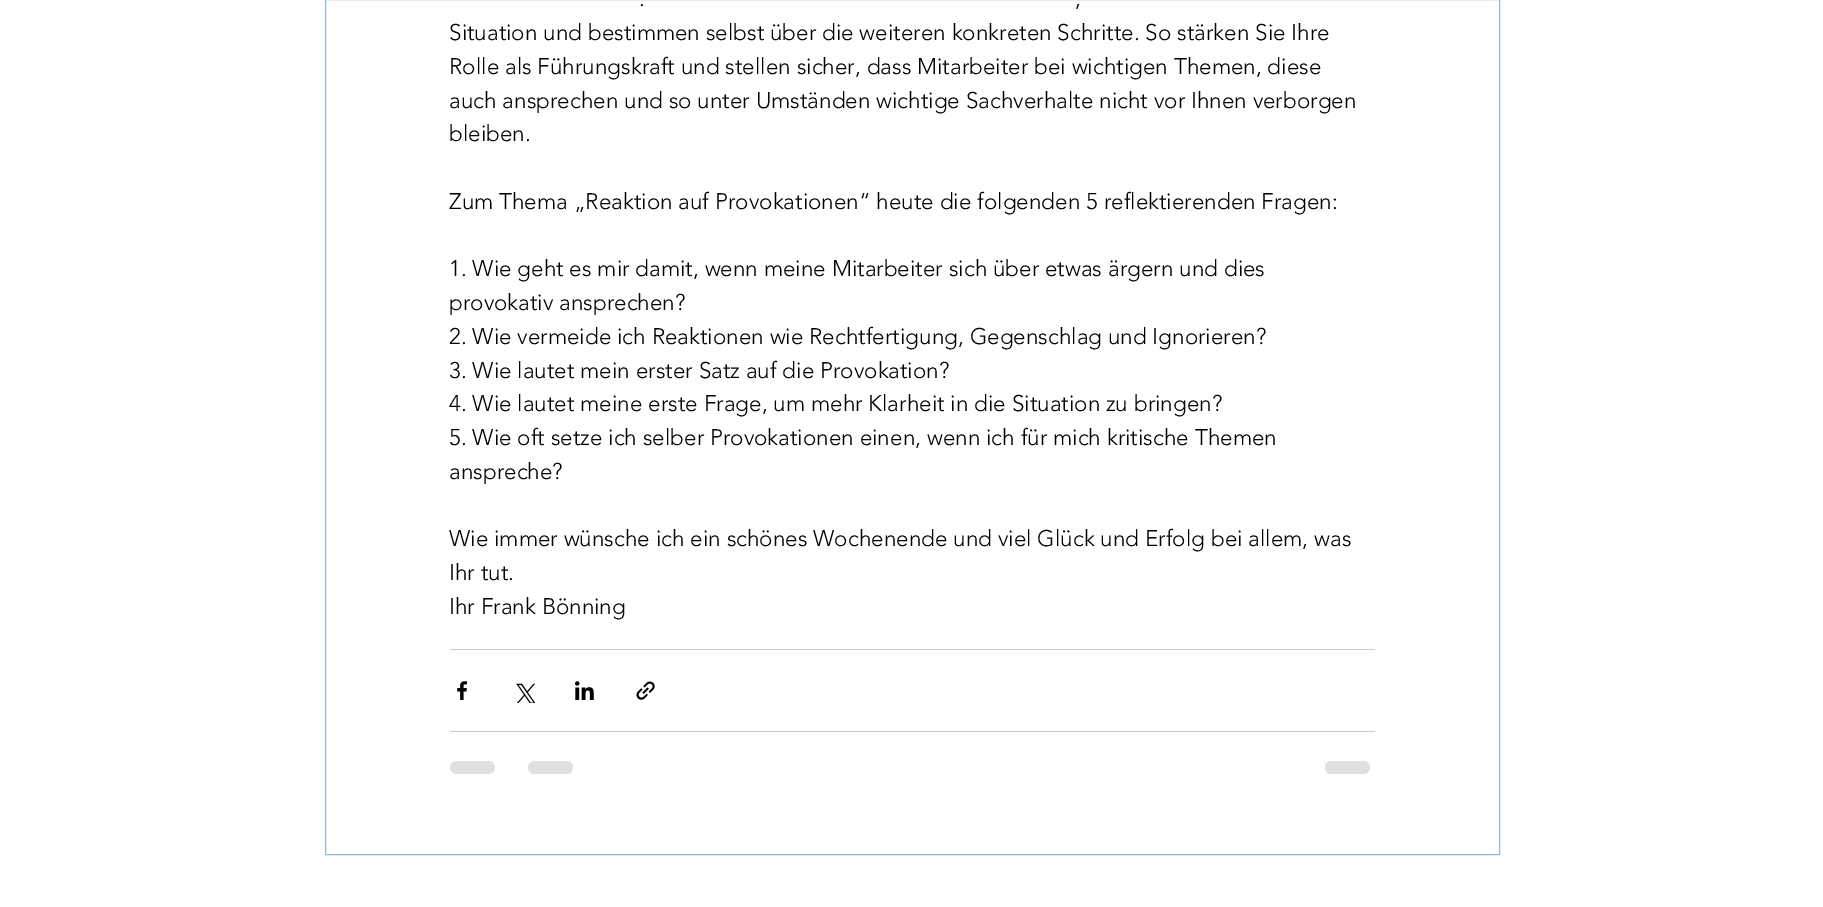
%!PS-Adobe-3.0
%%BoundingBox: 0 0 1823 907
%%LanguageLevel: 3
%%Pages: 1
%%EndComments
%%BeginProlog
/setink { 3 { 255 div 3 1 roll } repeat setrgbcolor } def
/usefont { [ exch dup neg 0 0 3 -1 roll 0 0 ] selectfont } def
/drawtext { setink usefont moveto show } def
/fillbox { setink rectfill } def
/rrect { 5 dict begin { /r /h /w /y /x } { exch def } forall
  x r add y moveto x w add y 2 copy h add r arct x w add y h add x 1 index r arct
  x y h add x y r arct x y 2 copy exch w add exch r arct closepath end } def
/drawimage { 5 dict begin { /h /w /y /x /name } { exch def } forall
  gsave x y translate w h scale
  w h 8 [w 0 0 h 0 0] name (r) file false 3 colorimage grestore end } def
%%EndProlog
%%BeginSetup
<< /PageSize [1823 907] >> setpagedevice
%%EndSetup
%%Page: 1 1
0 907 translate 1 -1 scale
4 setmiterlimit
0 0 1823 907 255 255 255 fillbox
140 187 224 setink
325.5 -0.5 1174 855 rectstroke
(.) 639 6 /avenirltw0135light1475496-Light 22.5 0 0 0 drawtext
(,) 1075 6 /avenirltw0135light1475496-Light 22.5 0 0 0 drawtext
(Situation und bestimmen selbst über die weiteren konkreten Schritte. So stärken Sie Ihre) 449 40 /avenirltw0135light1475496-Light 22.5 0 0 0 drawtext
(Rolle als Führungskraft und stellen sicher, dass Mitarbeiter bei wichtigen Themen, diese) 449 74 /avenirltw0135light1475496-Light 22.5 0 0 0 drawtext
(auch ansprechen und so unter Umständen wichtige Sachverhalte nicht vor Ihnen verborgen) 449 108 /avenirltw0135light1475496-Light 22.5 0 0 0 drawtext
(bleiben.) 449 141 /avenirltw0135light1475496-Light 22.5 0 0 0 drawtext
(Zum Thema „Reaktion auf Provokationen“ heute die folgenden 5 reflektierenden Fragen:) 449 209 /avenirltw0135light1475496-Light 22.5 0 0 0 drawtext
(1. Wie geht es mir damit, wenn meine Mitarbeiter sich über etwas ärgern und dies) 449 276 /avenirltw0135light1475496-Light 22.5 0 0 0 drawtext
(provokativ ansprechen?) 449 310 /avenirltw0135light1475496-Light 22.5 0 0 0 drawtext
(2. Wie vermeide ich Reaktionen wie Rechtfertigung, Gegenschlag und Ignorieren?) 449 344 /avenirltw0135light1475496-Light 22.5 0 0 0 drawtext
(3. Wie lautet mein erster Satz auf die Provokation?) 449 378 /avenirltw0135light1475496-Light 22.5 0 0 0 drawtext
(4. Wie lautet meine erste Frage, um mehr Klarheit in die Situation zu bringen?) 449 411 /avenirltw0135light1475496-Light 22.5 0 0 0 drawtext
(5. Wie oft setze ich selber Provokationen einen, wenn ich für mich kritische Themen) 449 445 /avenirltw0135light1475496-Light 22.5 0 0 0 drawtext
(anspreche?) 449 479 /avenirltw0135light1475496-Light 22.5 0 0 0 drawtext
(Wie immer wünsche ich ein schönes Wochenende und viel Glück und Erfolg bei allem, was) 449 546 /avenirltw0135light1475496-Light 22.5 0 0 0 drawtext
(Ihr tut.) 449 580 /avenirltw0135light1475496-Light 22.5 0 0 0 drawtext
(Ihr Frank Bönning) 449 614 /avenirltw0135light1475496-Light 22.5 0 0 0 drawtext
450 649 925 1 204 204 204 fillbox
(assets/img1.rgb) 457 681 10 19 drawimage
(assets/img2.rgb) 516 683 19 20 drawimage
(assets/img3.rgb) 575 681 19 19 drawimage
(assets/img4.rgb) 636 681 19 19 drawimage
450 731 925 1 204 204 204 fillbox
224 224 224 setink
450 761 45 13 6.5 rrect fill
528 761 45 13 6.5 rrect fill
1325 761 45 13 6.5 rrect fill
showpage
%%EOF
